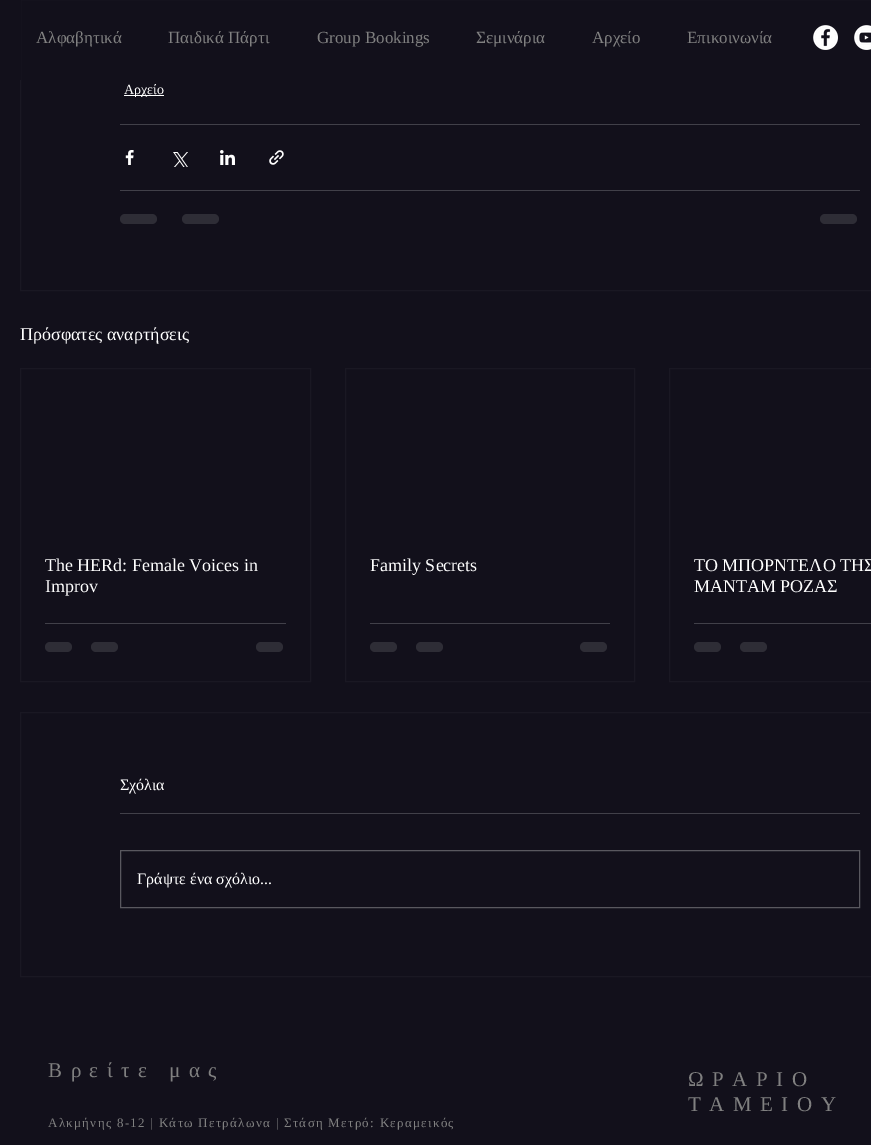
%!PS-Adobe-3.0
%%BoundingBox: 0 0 871 1145
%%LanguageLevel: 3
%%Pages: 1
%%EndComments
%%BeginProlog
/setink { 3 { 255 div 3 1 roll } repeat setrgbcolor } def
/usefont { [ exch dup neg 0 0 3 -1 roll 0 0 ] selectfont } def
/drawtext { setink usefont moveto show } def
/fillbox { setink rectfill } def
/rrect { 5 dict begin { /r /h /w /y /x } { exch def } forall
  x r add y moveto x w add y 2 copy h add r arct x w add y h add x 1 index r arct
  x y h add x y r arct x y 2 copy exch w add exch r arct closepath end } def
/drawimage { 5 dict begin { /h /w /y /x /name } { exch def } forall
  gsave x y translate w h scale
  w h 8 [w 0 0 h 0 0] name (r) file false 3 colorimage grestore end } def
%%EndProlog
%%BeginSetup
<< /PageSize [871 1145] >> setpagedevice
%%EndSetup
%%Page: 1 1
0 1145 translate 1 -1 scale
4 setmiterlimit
0 0 871 1145 18 16 27 fillbox
26 24 35 setink
20.5 -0.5 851 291 rectstroke
20 0 1 80 18 16 27 fillbox
(Αλφαβητικά) 36 43 /LiberationSerif-Regular 17 128 128 128 drawtext
(Παιδικά Πάρτι) 168 43 /LiberationSerif-Regular 17 128 128 128 drawtext
(Group Bookings) 317 43 /LiberationSerif-Regular 17 128 128 128 drawtext
(Σεμινάρια) 476 43 /LiberationSerif-Regular 17 128 128 128 drawtext
(Αρχείο) 592 43 /LiberationSerif-Regular 17 128 128 128 drawtext
(Επικοινωνία) 687 43 /LiberationSerif-Regular 17 128 128 128 drawtext
(assets/img1.rgb) 813 25 25 25 drawimage
(assets/img2.rgb) 854 25 17 25 drawimage
124 95 40 1 255 255 255 fillbox
(Αρχείο) 124 94 /LiberationSerif-Regular 14 255 255 255 drawtext
120 124 740 1 65 64 73 fillbox
(assets/img3.rgb) 125 150 9 15 drawimage
(assets/img4.rgb) 173 152 15 15 drawimage
(assets/img5.rgb) 220 150 15 15 drawimage
(assets/img6.rgb) 269 150 15 15 drawimage
120 190 740 1 65 64 73 fillbox
46 45 54 setink
120 214 37 10 5 rrect fill
182 214 37 10 5 rrect fill
820 214 37 10 5 rrect fill
(Πρόσφατες αναρτήσεις) 20 340 /LiberationSerif-Regular 18 255 255 255 drawtext
26 24 35 setink
20.5 368.5 290 313 rectstroke
(The HERd: Female Voices in) 45 571 /LiberationSerif-Regular 18 255 255 255 drawtext
(Improv) 45 592 /LiberationSerif-Regular 18 255 255 255 drawtext
45 623 241 1 65 64 73 fillbox
46 45 54 setink
45 642 27 10 5 rrect fill
91 642 27 10 5 rrect fill
256 642 27 10 5 rrect fill
26 24 35 setink
345.5 368.5 289 313 rectstroke
(Family Secrets) 370 571 /LiberationSerif-Regular 18 255 255 255 drawtext
370 623 240 1 65 64 73 fillbox
46 45 54 setink
370 642 27 10 5 rrect fill
416 642 27 10 5 rrect fill
580 642 27 10 5 rrect fill
26 24 35 setink
669.5 368.5 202 313 rectstroke
(ΤΟ ΜΠΟΡΝΤΕΛΟ ΤΗΣ) 694 571 /LiberationSerif-Regular 18 255 255 255 drawtext
(ΜΑΝΤΑΜ ΡΟΖΑΣ) 694 592 /LiberationSerif-Regular 18 255 255 255 drawtext
694 623 177 1 65 64 73 fillbox
46 45 54 setink
694 642 27 10 5 rrect fill
740 642 27 10 5 rrect fill
26 24 35 setink
20.5 712.5 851 264 rectstroke
(Σχόλια) 120 790 /LiberationSerif-Regular 16 255 255 255 drawtext
120 813 740 1 65 64 73 fillbox
89 88 95 setink
120.5 850.5 739 57 rectstroke
(Γράψτε ένα σχόλιο...) 137 884 /LiberationSerif-Regular 16 255 255 255 drawtext
/LiberationSerif-Regular 21 usefont
128 128 128 setink
48 1077 moveto 8.5 0 (Βρείτε μας) ashow
688 1086 moveto 8.5 0 (ΩΡΑΡΙΟ) ashow
688 1111 moveto 8.5 0 (ΤΑΜΕΙΟΥ) ashow
/LiberationSerif-Regular 13 usefont
48 1127 moveto 1.3 0 (Αλκμήνης 8-12 | Κάτω Πετράλωνα | Στάση Μετρό: Κεραμεικός) ashow
showpage
%%EOF
